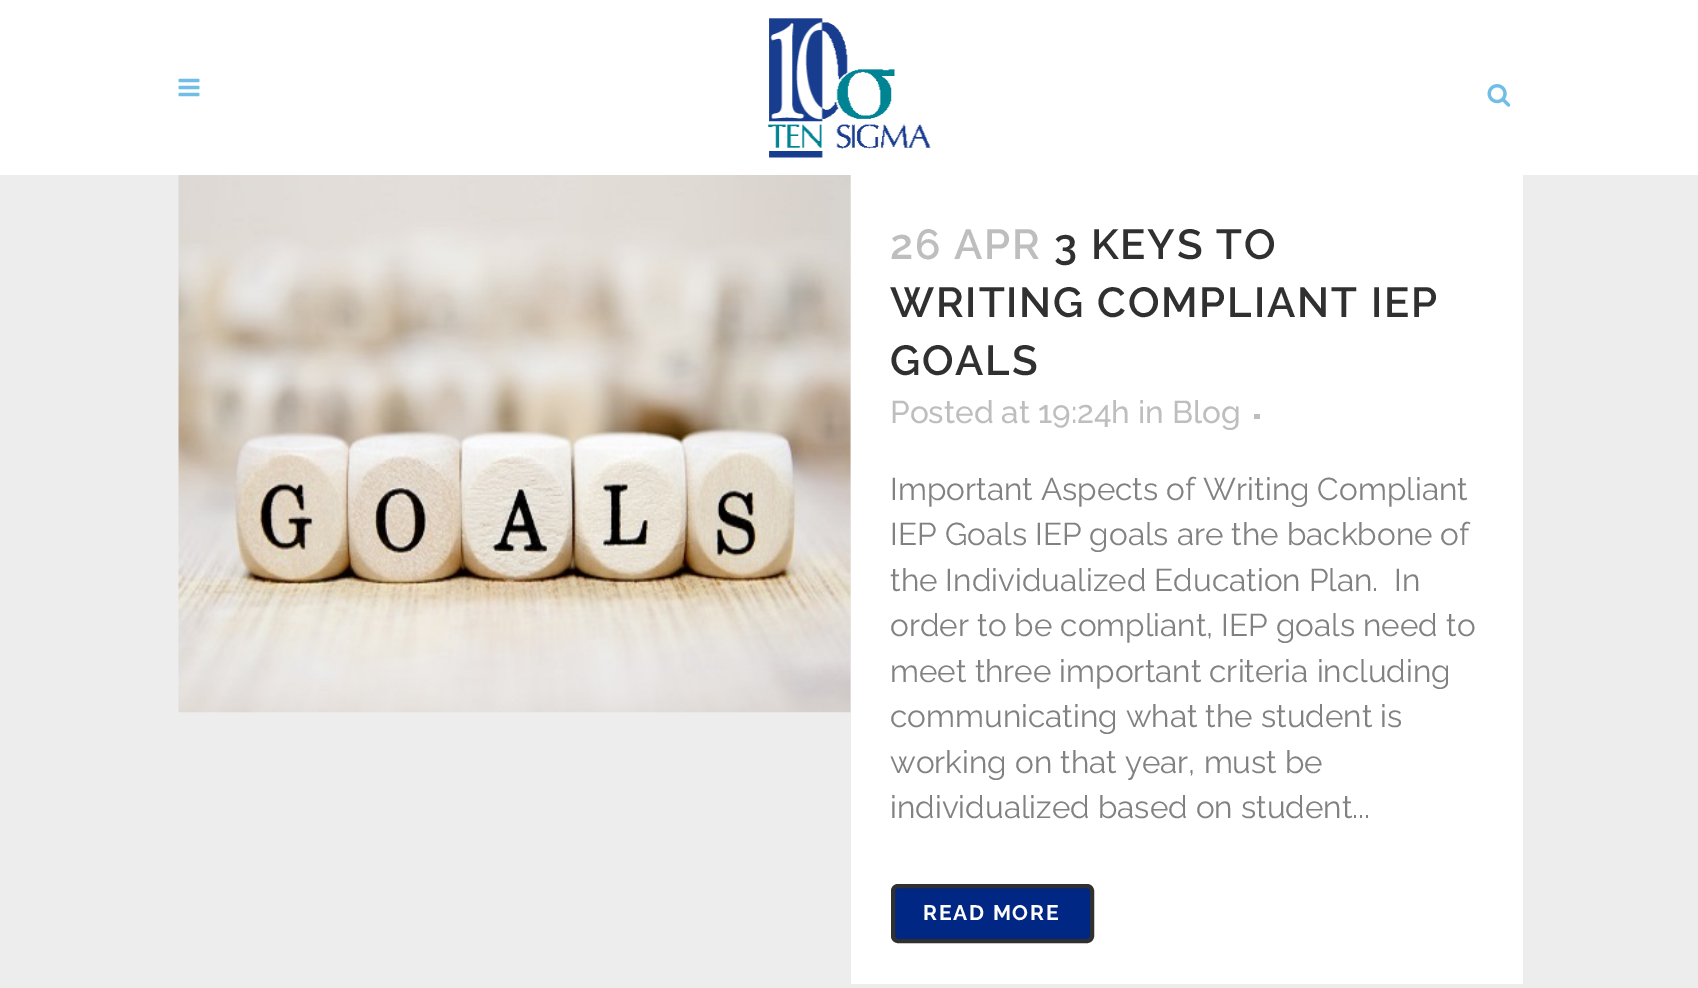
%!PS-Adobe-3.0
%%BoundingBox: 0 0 1698 988
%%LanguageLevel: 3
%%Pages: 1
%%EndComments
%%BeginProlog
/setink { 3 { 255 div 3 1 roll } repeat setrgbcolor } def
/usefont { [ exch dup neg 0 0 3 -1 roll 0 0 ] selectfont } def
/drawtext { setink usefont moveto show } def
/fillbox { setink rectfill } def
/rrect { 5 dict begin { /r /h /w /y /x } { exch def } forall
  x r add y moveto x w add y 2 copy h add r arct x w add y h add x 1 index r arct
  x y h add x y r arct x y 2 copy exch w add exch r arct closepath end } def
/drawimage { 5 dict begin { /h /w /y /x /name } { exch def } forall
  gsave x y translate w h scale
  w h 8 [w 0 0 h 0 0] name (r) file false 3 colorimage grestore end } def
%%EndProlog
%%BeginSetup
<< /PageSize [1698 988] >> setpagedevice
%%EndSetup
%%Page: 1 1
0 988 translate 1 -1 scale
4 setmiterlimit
0 0 1698 988 237 237 237 fillbox
0 0 1698 175 255 255 255 fillbox
(assets/img1.rgb) 178 78 22 19 drawimage
(assets/img2.rgb) 768 18 163 140 drawimage
(assets/img3.rgb) 1487 84 24 23 drawimage
(assets/img4.rgb) 178 175 673 538 drawimage
851 175 672 809 255 255 255 fillbox
/Raleway-SemiBold 42 usefont
190 190 190 setink
890 259 moveto 1.75 0 (26 APR) ashow
48 48 48 setink
1054 259 moveto 1.75 0 (3 KEYS TO) ashow
890 317 moveto 1.75 0 (WRITING COMPLIANT IEP) ashow
890 375 moveto 1.75 0 (GOALS) ashow
(Posted at 19:24h in Blog) 890 423 /Raleway-Medium 31.5 190 190 190 drawtext
1254 414 6 5 190 190 190 fillbox
(Important Aspects of Writing Compliant) 890 500 /Raleway-Regular 31.5 129 129 129 drawtext
(IEP Goals IEP goals are the backbone of) 890 545 /Raleway-Regular 31.5 129 129 129 drawtext
(the Individualized Education Plan.  In) 890 591 /Raleway-Regular 31.5 129 129 129 drawtext
(order to be compliant, IEP goals need to) 890 636 /Raleway-Regular 31.5 129 129 129 drawtext
(meet three important criteria including) 890 682 /Raleway-Regular 31.5 129 129 129 drawtext
(communicating what the student is) 890 727 /Raleway-Regular 31.5 129 129 129 drawtext
(working on that year, must be) 890 773 /Raleway-Regular 31.5 129 129 129 drawtext
(individualized based on student...) 890 818 /Raleway-Regular 31.5 129 129 129 drawtext
0 39 132 setink
893 886 199 55 5 rrect gsave fill grestore
48 48 48 setink
4 setlinewidth
stroke
/Raleway-Bold 21 usefont
255 255 255 setink
923 920 moveto 1.75 0 (READ MORE) ashow
showpage
%%EOF
